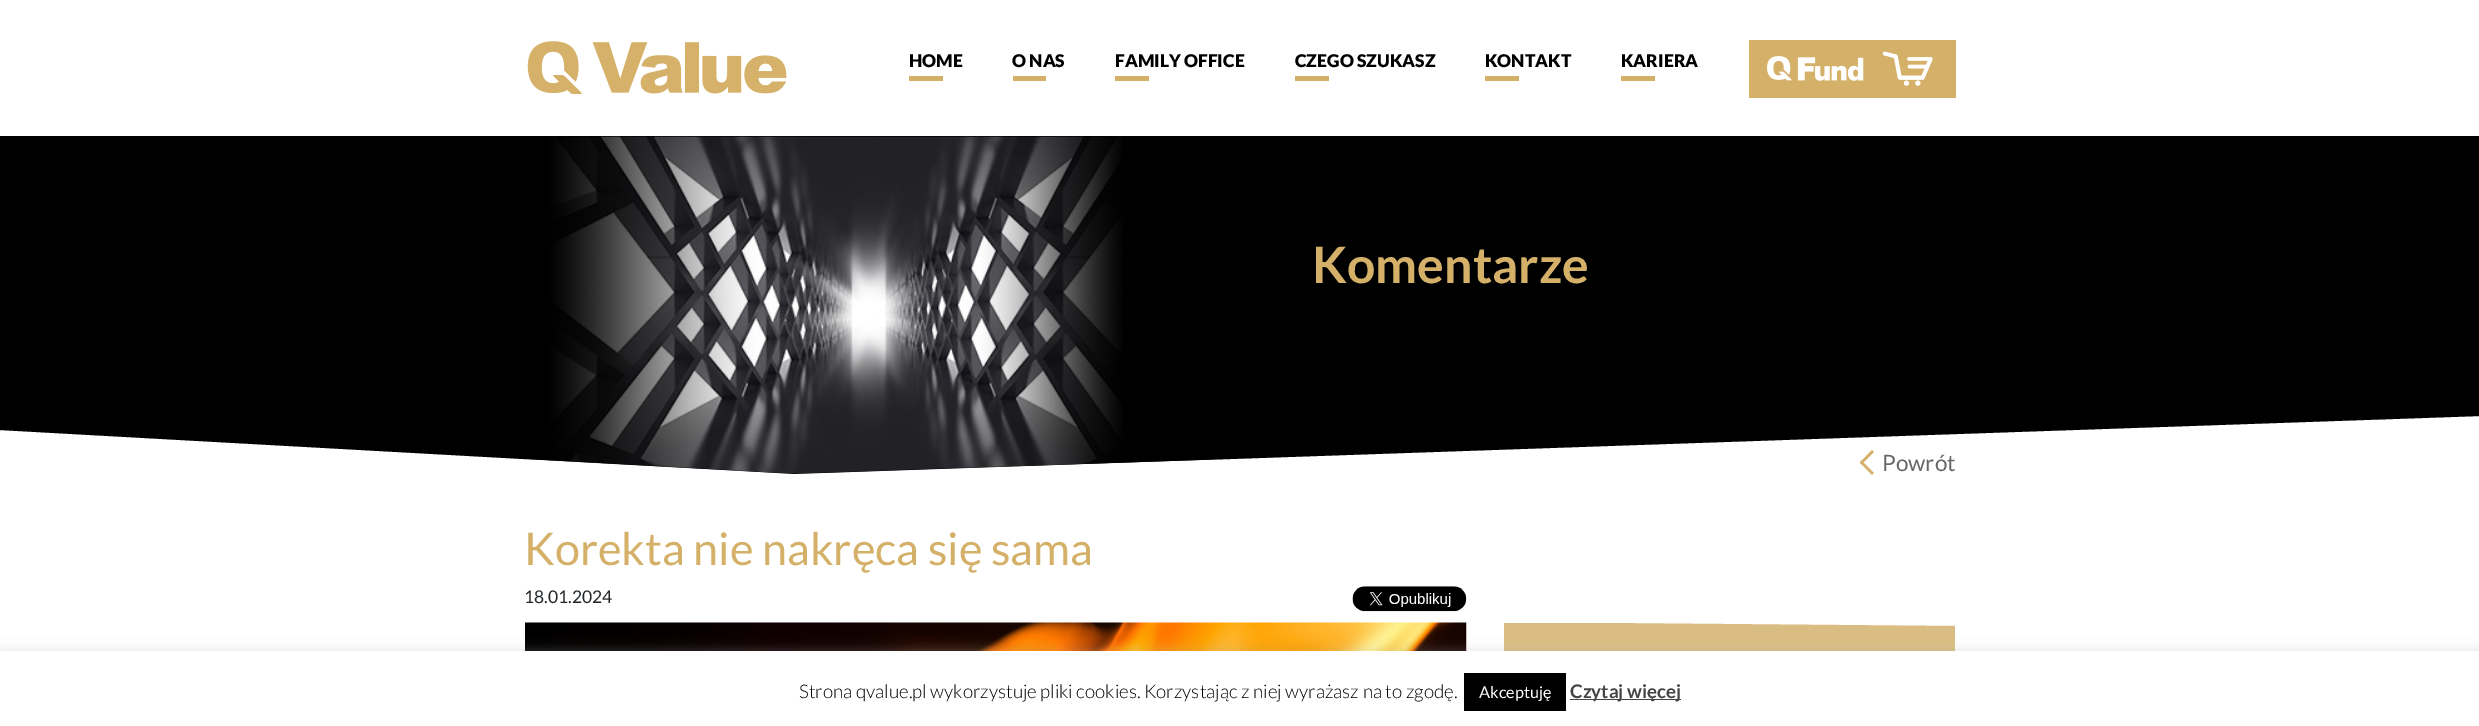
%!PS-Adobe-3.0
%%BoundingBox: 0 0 2479 726
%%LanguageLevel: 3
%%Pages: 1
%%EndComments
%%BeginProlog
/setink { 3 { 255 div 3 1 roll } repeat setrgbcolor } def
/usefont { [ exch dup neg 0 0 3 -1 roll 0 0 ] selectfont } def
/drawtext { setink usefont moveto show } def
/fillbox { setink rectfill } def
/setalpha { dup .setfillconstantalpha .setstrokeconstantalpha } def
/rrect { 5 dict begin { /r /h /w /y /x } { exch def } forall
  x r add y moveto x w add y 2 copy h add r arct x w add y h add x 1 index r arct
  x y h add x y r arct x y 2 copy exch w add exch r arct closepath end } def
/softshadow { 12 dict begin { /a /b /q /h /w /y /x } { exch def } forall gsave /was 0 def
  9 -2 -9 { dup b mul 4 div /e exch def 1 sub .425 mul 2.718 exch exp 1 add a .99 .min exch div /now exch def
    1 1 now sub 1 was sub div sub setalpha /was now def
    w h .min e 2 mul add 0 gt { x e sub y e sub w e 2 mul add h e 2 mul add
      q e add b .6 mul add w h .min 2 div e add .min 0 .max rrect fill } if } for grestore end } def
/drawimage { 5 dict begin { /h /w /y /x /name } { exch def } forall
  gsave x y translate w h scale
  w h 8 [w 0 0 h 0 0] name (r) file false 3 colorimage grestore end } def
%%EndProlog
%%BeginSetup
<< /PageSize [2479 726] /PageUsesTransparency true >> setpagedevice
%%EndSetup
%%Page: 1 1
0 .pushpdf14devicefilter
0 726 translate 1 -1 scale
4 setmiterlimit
0 0 2479 726 255 255 255 fillbox
(assets/img1.rgb) 527 41 260 53 drawimage
(HOME) 909 67 /Lato-Black 17.5 0 0 0 drawtext
909 76 34 5 212 176 104 fillbox
(O NAS) 1012 67 /Lato-Black 17.5 0 0 0 drawtext
1013 76 33 5 212 176 104 fillbox
(FAMILY OFFICE) 1115 67 /Lato-Black 17.5 0 0 0 drawtext
1115 76 34 5 212 176 104 fillbox
(CZEGO SZUKASZ) 1295 67 /Lato-Black 17.5 0 0 0 drawtext
1295 76 34 5 212 176 104 fillbox
(KONTAKT) 1485 67 /Lato-Black 17.5 0 0 0 drawtext
1485 76 34 5 212 176 104 fillbox
(KARIERA) 1621 67 /Lato-Black 17.5 0 0 0 drawtext
1621 76 34 5 212 176 104 fillbox
1749 40 207 58 212 176 104 fillbox
(assets/img2.rgb) 1883 51 50 35 drawimage
(assets/img3.rgb) 1767 56 97 25 drawimage
0 0 0 setink
0 136 moveto 0 430 lineto 794 474 lineto 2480 416 lineto 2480 136 lineto closepath fill
(assets/img4.rgb) 527 136 686 338 drawimage
(Komentarze) 1312 283 /Lato-Bold 50 212 176 104 drawtext
1861.5 460.5 moveto 1874 473 lineto 1872 475 lineto 1860 462.5 lineto closepath fill
1872 450 moveto 1874 452 lineto 1861.5 464.5 lineto 1860 462.5 lineto closepath fill
(Powrót) 1882 471 /Lato-Regular 22.5 104 104 104 drawtext
(Korekta nie nakręca się sama) 524 565 /Lato-Regular 45 212 176 104 drawtext
(18.01.2024) 524 603 /Lato-Regular 17.5 33 37 41 drawtext
(assets/img5.rgb) 1352 586 115 26 drawimage
(assets/img6.rgb) 525 622 942 29 drawimage
218 189 131 setink
1504 623 moveto 1606 623 lineto 1955 626 lineto 1955 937 lineto 1666 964 lineto 1504 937 lineto closepath fill
172 171 171 setink
0 650 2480 75 0 6 0.3 softshadow
0 651 2479 75 255 255 255 fillbox
(Strona qvalue.pl wykorzystuje pliki cookies. Korzystając z niej wyrażasz na to zgodę.) 799 698 /Lato-Light 18.75 0 0 0 drawtext
1464 673 102 38 0 0 0 fillbox
(Akceptuję) 1479 698 /Lato-Regular 16.25 255 255 255 drawtext
1570 699 111 1 68 68 68 fillbox
(Czytaj więcej) 1570 698 /Lato-Bold 18.75 68 68 68 drawtext
.poppdf14devicefilter showpage
%%EOF
